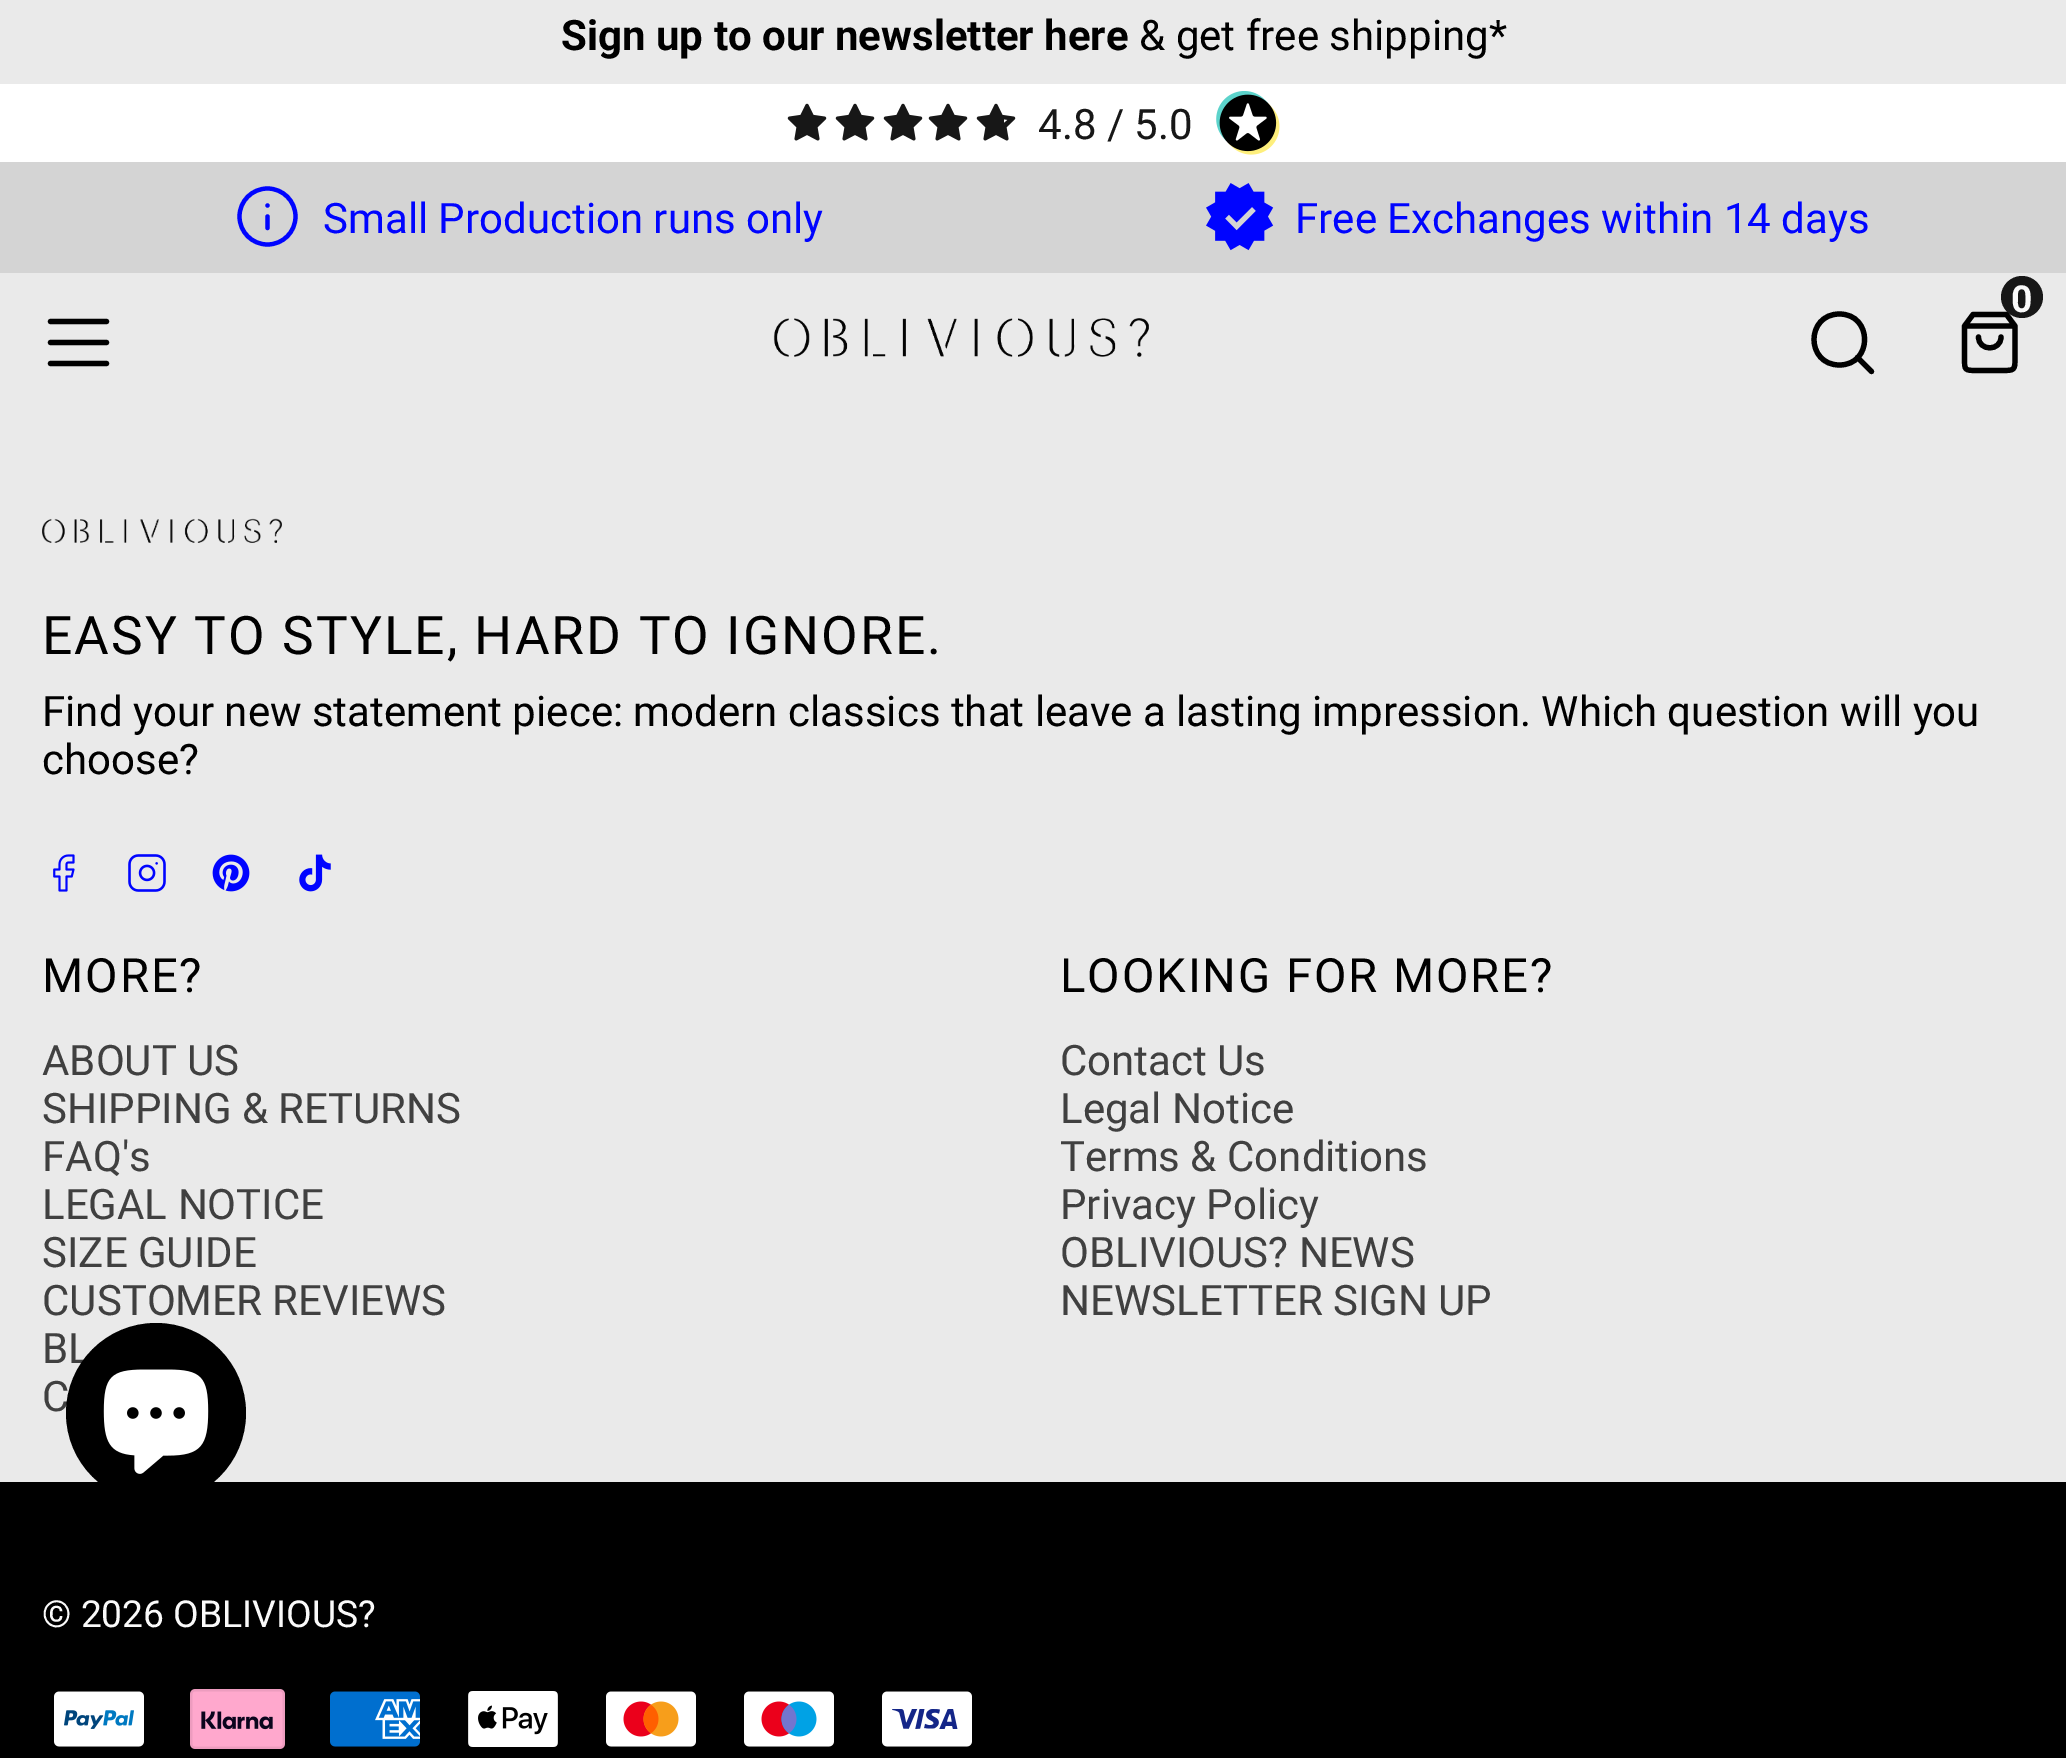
%!PS-Adobe-3.0
%%BoundingBox: 0 0 2066 1758
%%LanguageLevel: 3
%%Pages: 1
%%EndComments
%%BeginProlog
/setink { 3 { 255 div 3 1 roll } repeat setrgbcolor } def
/usefont { [ exch dup neg 0 0 3 -1 roll 0 0 ] selectfont } def
/drawtext { setink usefont moveto show } def
/fillbox { setink rectfill } def
/disc { newpath 0 360 arc closepath } def
/drawimage { 5 dict begin { /h /w /y /x /name } { exch def } forall
  gsave x y translate w h scale
  w h 8 [w 0 0 h 0 0] name (r) file false 3 colorimage grestore end } def
%%EndProlog
%%BeginSetup
<< /PageSize [2066 1758] >> setpagedevice
%%EndSetup
%%Page: 1 1
0 1758 translate 1 -1 scale
4 setmiterlimit
0 0 2066 1758 255 255 255 fillbox
0 0 2066 84 234 234 234 fillbox
(Sign up to our newsletter here) 561 50 /Roboto-Bold 42 0 0 0 drawtext
(& get free shipping*) 1139 50 /Roboto-Regular 42 0 0 0 drawtext
(assets/img1.rgb) 787 103 40 38 drawimage
(assets/img1.rgb) 835 103 40 38 drawimage
(assets/img1.rgb) 883 103 40 38 drawimage
(assets/img1.rgb) 928 103 40 38 drawimage
(assets/img2.rgb) 976 103 40 38 drawimage
(4.8 / 5.0) 1038 139 /Roboto-Regular 42 23 23 23 drawtext
(assets/img3.rgb) 1216 91 64 64 drawimage
0 162 2066 111 212 212 212 fillbox
0 4 255 setink
4.2 setlinewidth
1 setlinecap
1 setlinejoin
267.5 244.5 moveto 283 244.5 295.5 232 295.5 216.5 curveto 295.5 201 283 188.5 267.5 188.5 curveto 252 188.5 239.5 201 239.5 216.5 curveto 239.5 232 252 244.5 267.5 244.5 curveto closepath 267.5 228 moveto 267.5 216.5 lineto 267.5 205.5 moveto 267.5 205.5 lineto stroke
(Small Production runs only) 323 233 /Roboto-Regular 42 0 4 255 drawtext
(assets/img4.rgb) 1206 183 68 68 drawimage
(Free Exchanges within 14 days) 1295 233 /Roboto-Regular 42 0 4 255 drawtext
0 273 2066 1209 234 234 234 fillbox
0 0 0 setink
5.2 setlinewidth
1973 314.5 moveto 1964.5 326 lineto 1964.5 358.5 lineto 1964.5 370 1964.5 370.5 1976.5 370.5 curveto 2002.5 370.5 lineto 2014.5 370.5 2015 370 2015 358.5 curveto 2015 326 lineto 2006.5 314.5 lineto closepath 1964.5 326 moveto 2015 326 lineto 2001 337 moveto 2001 351.5 1978.5 351.5 1978.5 337 curveto stroke
23 23 23 setink
2022 297 21 disc fill
(0) 2011 312 /Roboto-Bold 37.25 250 250 250 drawtext
0 0 0 setink
1839.5 365 moveto 1873 365 1873 314 1839.5 314 curveto 1805.5 314 1805.5 365 1839.5 365 curveto closepath stroke
1871.5 371.5 moveto 1857.5 357.5 lineto stroke
50.5 342.5 moveto 106.5 342.5 lineto 50.5 321.5 moveto 106.5 321.5 lineto 50.5 363.5 moveto 106.5 363.5 lineto stroke
(assets/img5.rgb) 773 318 376 39 drawimage
(assets/img6.rgb) 42 518 240 25 drawimage
/Roboto-Regular 53.2 usefont
42 654 moveto 2.1 0 (EASY TO STYLE, HARD TO IGNORE.) ashow
(Find your new statement piece: modern classics that leave a lasting impression. Which question will you) 42 726 /Roboto-Regular 42 0 0 0 drawtext
(choose?) 42 774 /Roboto-Regular 42 0 0 0 drawtext
(assets/img7.rgb) 53 854 22 38 drawimage
(assets/img8.rgb) 128 854 38 38 drawimage
(assets/img9.rgb) 212 854 38 38 drawimage
(assets/img10.rgb) 299 854 32 38 drawimage
/Roboto-Regular 47.25 usefont
42 992 moveto 1.9 0 (MORE?) ashow
(ABOUT US) 42 1075 /Roboto-Regular 42 64 64 64 drawtext
(SHIPPING & RETURNS) 42 1123 /Roboto-Regular 42 64 64 64 drawtext
(FAQ's) 42 1171 /Roboto-Regular 42 64 64 64 drawtext
(LEGAL NOTICE) 42 1219 /Roboto-Regular 42 64 64 64 drawtext
(SIZE GUIDE) 42 1267 /Roboto-Regular 42 64 64 64 drawtext
(CUSTOMER REVIEWS) 42 1315 /Roboto-Regular 42 64 64 64 drawtext
(BL) 42 1363 /Roboto-Regular 42 64 64 64 drawtext
(C) 42 1411 /Roboto-Regular 42 64 64 64 drawtext
/Roboto-Regular 47.25 usefont
0 0 0 setink
1060 992 moveto 1.9 0 (LOOKING FOR MORE?) ashow
(Contact Us) 1060 1075 /Roboto-Regular 42 64 64 64 drawtext
(Legal Notice) 1060 1123 /Roboto-Regular 42 64 64 64 drawtext
(Terms & Conditions) 1060 1171 /Roboto-Regular 42 64 64 64 drawtext
(Privacy Policy) 1060 1219 /Roboto-Regular 42 64 64 64 drawtext
(OBLIVIOUS? NEWS) 1060 1267 /Roboto-Regular 42 64 64 64 drawtext
(NEWSLETTER SIGN UP) 1060 1315 /Roboto-Regular 42 64 64 64 drawtext
0 1482 2066 276 0 0 0 fillbox
156 1413 90 disc fill
(assets/img11.rgb) 103 1369 106 105 drawimage
(© 2026 OBLIVIOUS?) 42 1627 /Roboto-Regular 37.25 250 250 250 drawtext
(assets/img12.rgb) 54 1691 90 56 drawimage
(assets/img13.rgb) 190 1689 95 60 drawimage
(assets/img14.rgb) 330 1691 90 56 drawimage
(assets/img15.rgb) 468 1691 90 56 drawimage
(assets/img16.rgb) 606 1691 90 56 drawimage
(assets/img17.rgb) 744 1691 90 56 drawimage
(assets/img18.rgb) 882 1691 90 56 drawimage
showpage
%%EOF
